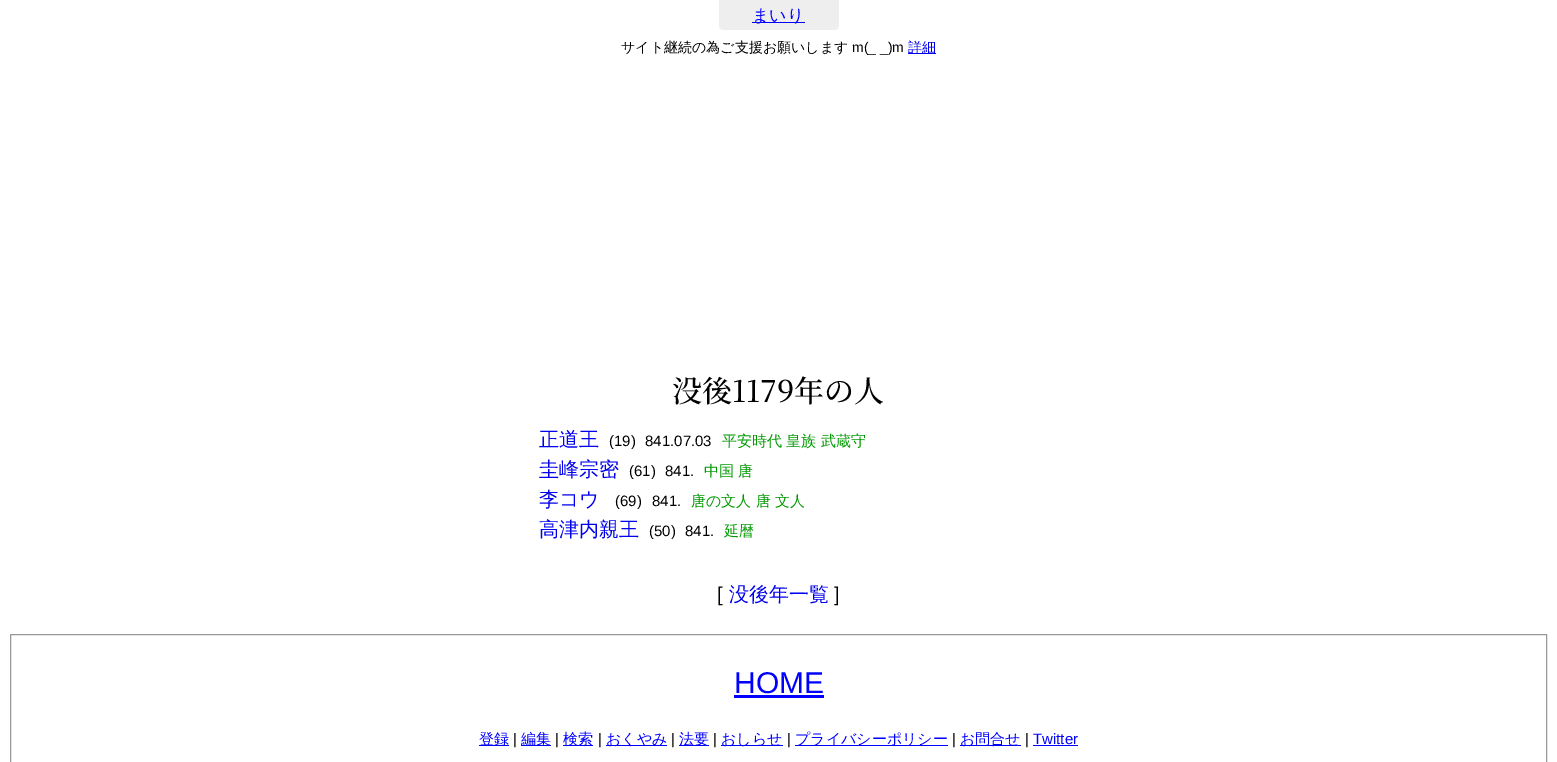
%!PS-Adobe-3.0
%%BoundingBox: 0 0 1557 762
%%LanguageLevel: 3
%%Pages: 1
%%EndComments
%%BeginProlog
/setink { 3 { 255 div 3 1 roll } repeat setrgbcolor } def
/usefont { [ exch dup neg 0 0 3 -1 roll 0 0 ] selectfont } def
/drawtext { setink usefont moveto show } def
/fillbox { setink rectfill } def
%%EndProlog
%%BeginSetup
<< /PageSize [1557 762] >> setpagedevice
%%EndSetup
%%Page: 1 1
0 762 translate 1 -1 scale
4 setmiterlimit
0 0 1557 762 255 255 255 fillbox
238 238 238 setink
719 0 moveto 839 0 lineto 839 25 lineto 839 28 837 30 834 30 curveto 724 30 lineto 721 30 719 28 719 25 curveto closepath fill
752 22 53 1 0 0 255 fillbox
(まいり) 752 21 /WenQuanYiZenHei-Medium 17 0 0 255 drawtext
(サイト継続の為ご支援お願いします) 621 52 /WenQuanYiZenHei-Medium 14 0 0 0 drawtext
(m\(_ _\)m) 852 52 /LiberationSans-Regular 14 0 0 0 drawtext
908 53 28 1 0 0 238 fillbox
(詳細) 908 52 /WenQuanYiZenHei-Medium 14 0 0 238 drawtext
(没後1179年の人) 672 402 /NotoSerifJP-ExtraLight 30 0 0 0 drawtext
(正道王) 539 446 /WenQuanYiZenHei-Medium 20 0 0 238 drawtext
(\(19\)) 609 446 /LiberationSans-Regular 15 0 0 0 drawtext
(841.07.03) 645 446 /LiberationSans-Regular 15 0 0 0 drawtext
(平安時代 皇族 武蔵守) 722 446 /WenQuanYiZenHei-Medium 15 0 153 0 drawtext
(圭峰宗密) 539 476 /WenQuanYiZenHei-Medium 20 0 0 238 drawtext
(\(61\)) 629 476 /LiberationSans-Regular 15 0 0 0 drawtext
(841.) 665 476 /LiberationSans-Regular 15 0 0 0 drawtext
(中国 唐) 704 476 /WenQuanYiZenHei-Medium 15 0 153 0 drawtext
(李コウ) 539 506 /WenQuanYiZenHei-Medium 20 0 0 238 drawtext
(\(69\)) 615 506 /LiberationSans-Regular 15 0 0 0 drawtext
(841.) 652 506 /LiberationSans-Regular 15 0 0 0 drawtext
(唐の文人 唐 文人) 691 506 /WenQuanYiZenHei-Medium 15 0 153 0 drawtext
(高津内親王) 539 536 /WenQuanYiZenHei-Medium 20 0 0 238 drawtext
(\(50\)) 649 536 /LiberationSans-Regular 15 0 0 0 drawtext
(841.) 685 536 /LiberationSans-Regular 15 0 0 0 drawtext
(延暦) 724 536 /WenQuanYiZenHei-Medium 15 0 153 0 drawtext
([) 717 601 /LiberationSans-Regular 20 0 0 0 drawtext
(没後年一覧) 729 601 /WenQuanYiZenHei-Medium 20 0 0 238 drawtext
(]) 834 601 /LiberationSans-Regular 20 0 0 0 drawtext
153 153 153 setink
10.5 634.5 1536 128 rectstroke
(HOME) 734 693 /LiberationSans-Regular 30 0 0 255 drawtext
734 695 90 3 0 0 255 fillbox
479 745 30 1 0 0 255 fillbox
(登録) 479 744 /WenQuanYiZenHei-Medium 15 0 0 255 drawtext
(|) 513 744 /LiberationSans-Regular 15 0 0 0 drawtext
521 745 30 1 0 0 255 fillbox
(編集) 521 744 /WenQuanYiZenHei-Medium 15 0 0 255 drawtext
(|) 555 744 /LiberationSans-Regular 15 0 0 0 drawtext
563 745 30 1 0 0 255 fillbox
(検索) 563 744 /WenQuanYiZenHei-Medium 15 0 0 255 drawtext
(|) 598 744 /LiberationSans-Regular 15 0 0 0 drawtext
606 745 61 1 0 0 255 fillbox
(おくやみ) 606 744 /WenQuanYiZenHei-Medium 15 0 0 255 drawtext
(|) 671 744 /LiberationSans-Regular 15 0 0 0 drawtext
679 745 30 1 0 0 255 fillbox
(法要) 679 744 /WenQuanYiZenHei-Medium 15 0 0 255 drawtext
(|) 713 744 /LiberationSans-Regular 15 0 0 0 drawtext
721 745 62 1 0 0 255 fillbox
(おしらせ) 721 744 /WenQuanYiZenHei-Medium 15 0 0 255 drawtext
(|) 787 744 /LiberationSans-Regular 15 0 0 0 drawtext
795 745 153 1 0 0 255 fillbox
(プライバシーポリシー) 795 744 /WenQuanYiZenHei-Medium 15 0 0 255 drawtext
(|) 952 744 /LiberationSans-Regular 15 0 0 0 drawtext
960 745 61 1 0 0 255 fillbox
(お問合せ) 960 744 /WenQuanYiZenHei-Medium 15 0 0 255 drawtext
(|) 1025 744 /LiberationSans-Regular 15 0 0 0 drawtext
(Twitter) 1033 744 /LiberationSans-Regular 15 0 0 255 drawtext
1033 745 45 1 0 0 255 fillbox
showpage
%%EOF
